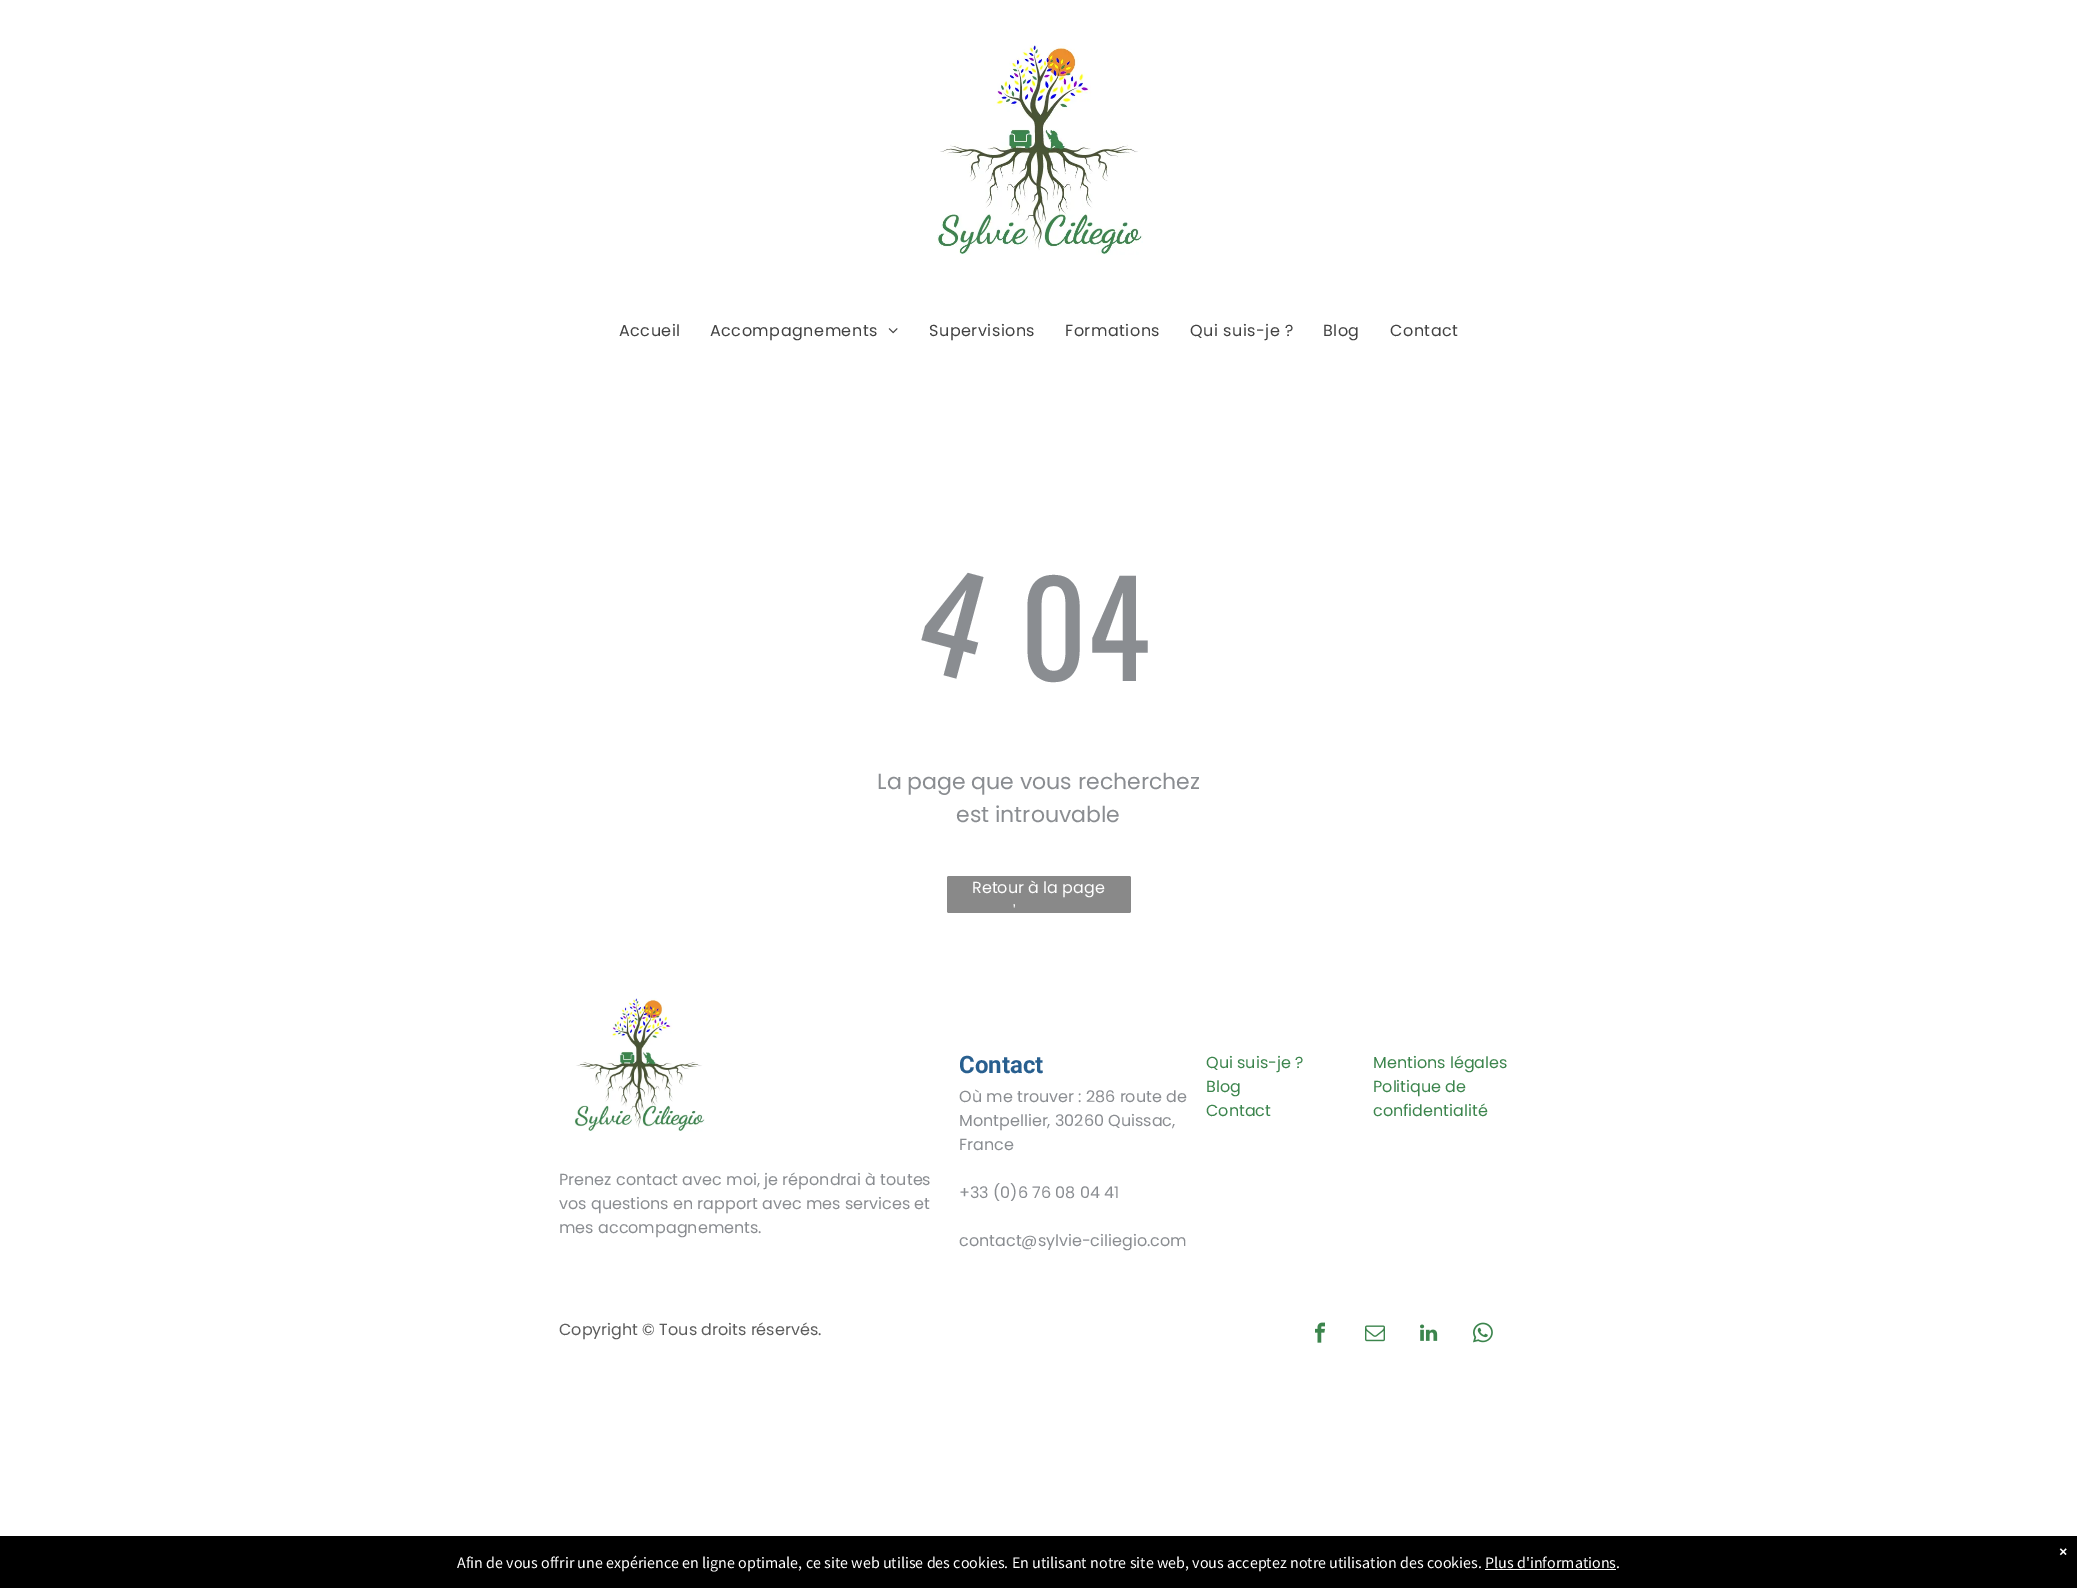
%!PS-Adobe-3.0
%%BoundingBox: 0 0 2077 1588
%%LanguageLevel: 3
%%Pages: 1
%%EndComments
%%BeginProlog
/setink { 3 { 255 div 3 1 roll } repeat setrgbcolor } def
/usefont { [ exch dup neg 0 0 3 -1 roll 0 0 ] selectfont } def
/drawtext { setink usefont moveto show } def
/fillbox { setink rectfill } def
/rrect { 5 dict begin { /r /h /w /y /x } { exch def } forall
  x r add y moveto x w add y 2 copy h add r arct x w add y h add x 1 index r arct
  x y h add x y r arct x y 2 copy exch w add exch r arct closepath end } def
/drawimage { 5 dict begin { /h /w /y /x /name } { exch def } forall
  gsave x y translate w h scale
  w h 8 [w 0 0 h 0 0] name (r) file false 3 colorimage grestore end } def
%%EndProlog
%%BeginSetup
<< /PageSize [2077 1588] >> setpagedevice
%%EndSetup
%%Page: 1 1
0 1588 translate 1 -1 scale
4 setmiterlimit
0 0 2077 1588 255 255 255 fillbox
(assets/img1.rgb) 937 45 206 210 drawimage
/Poppins-Regular 16 usefont
66 66 66 setink
619 336 moveto 0.5 0 (Accueil) ashow
710 336 moveto 0.5 0 (Accompagnements) ashow
(assets/img2.rgb) 888 328 10 6 drawimage
929 336 moveto 0.5 0 (Supervisions) ashow
1065 336 moveto 0.5 0 (Formations) ashow
1190 336 moveto 0.5 0 (Qui suis-je ?) ashow
1323 336 moveto 0.5 0 (Blog) ashow
1390 336 moveto 0.5 0 (Contact) ashow
/Oswald-Regular 130 usefont
138 141 145 setink
gsave 909 666 translate 15 rotate 0 0 moveto (4) show grestore
(04) 1020 681 /Oswald-Regular 130 138 141 145 drawtext
(La page que vous recherchez) 877 789 /Poppins-Regular 22 138 141 145 drawtext
(est introuvable) 956 822 /Poppins-Regular 22 138 141 145 drawtext
137 137 137 setink
947 876 184 37 2 rrect fill
(Retour à la page) 972 893 /Poppins-Regular 16 255 255 255 drawtext
(') 1013 917 /Poppins-Regular 16 255 255 255 drawtext
(Contact) 959 1073 /Roboto-Bold 24 40 95 143 drawtext
(Où me trouver : 286 route de) 959 1102 /Poppins-Regular 16 138 141 145 drawtext
(Montpellier, 30260 Quissac,) 959 1126 /Poppins-Regular 16 138 141 145 drawtext
(France) 959 1150 /Poppins-Regular 16 138 141 145 drawtext
(+33 \(0\)6 76 08 04 41) 959 1198 /Poppins-Regular 16 138 141 145 drawtext
(contact@sylvie-ciliegio.com) 959 1246 /Poppins-Regular 16 138 141 145 drawtext
(Qui suis-je ?) 1206 1068 /Poppins-Regular 16 60 133 77 drawtext
(Blog) 1206 1092 /Poppins-Regular 16 60 133 77 drawtext
(Contact) 1206 1116 /Poppins-Regular 16 60 133 77 drawtext
(Mentions légales) 1373 1068 /Poppins-Regular 16 60 133 77 drawtext
(Politique de) 1373 1092 /Poppins-Regular 16 60 133 77 drawtext
(confidentialité) 1373 1116 /Poppins-Regular 16 60 133 77 drawtext
(assets/img3.rgb) 574 998 131 134 drawimage
(Prenez contact avec moi, je répondrai à toutes) 559 1185 /Poppins-Regular 16 138 141 145 drawtext
(vos questions en rapport avec mes services et) 559 1209 /Poppins-Regular 16 138 141 145 drawtext
(mes accompagnements.) 559 1233 /Poppins-Regular 16 138 141 145 drawtext
(Copyright © Tous droits réservés.) 559 1335 /Poppins-Regular 16 93 93 93 drawtext
(assets/img4.rgb) 1315 1322 10 21 drawimage
(assets/img5.rgb) 1365 1325 20 17 drawimage
(assets/img6.rgb) 1420 1324 18 17 drawimage
(assets/img7.rgb) 1473 1322 20 21 drawimage
0 1536 2077 52 0 0 0 fillbox
(×) 2059 1557 /SourceSansPro-Bold 16 255 255 255 drawtext
(Afin de vous offrir une expérience en ligne optimale, ce site web utilise des cookies. En utilisant notre site web, vous acceptez notre utilisation des cookies. Plus d'informations.) 457 1568 /SourceSansPro-Regular 16 255 255 255 drawtext
1485 1569 131 1 255 255 255 fillbox
showpage
%%EOF
